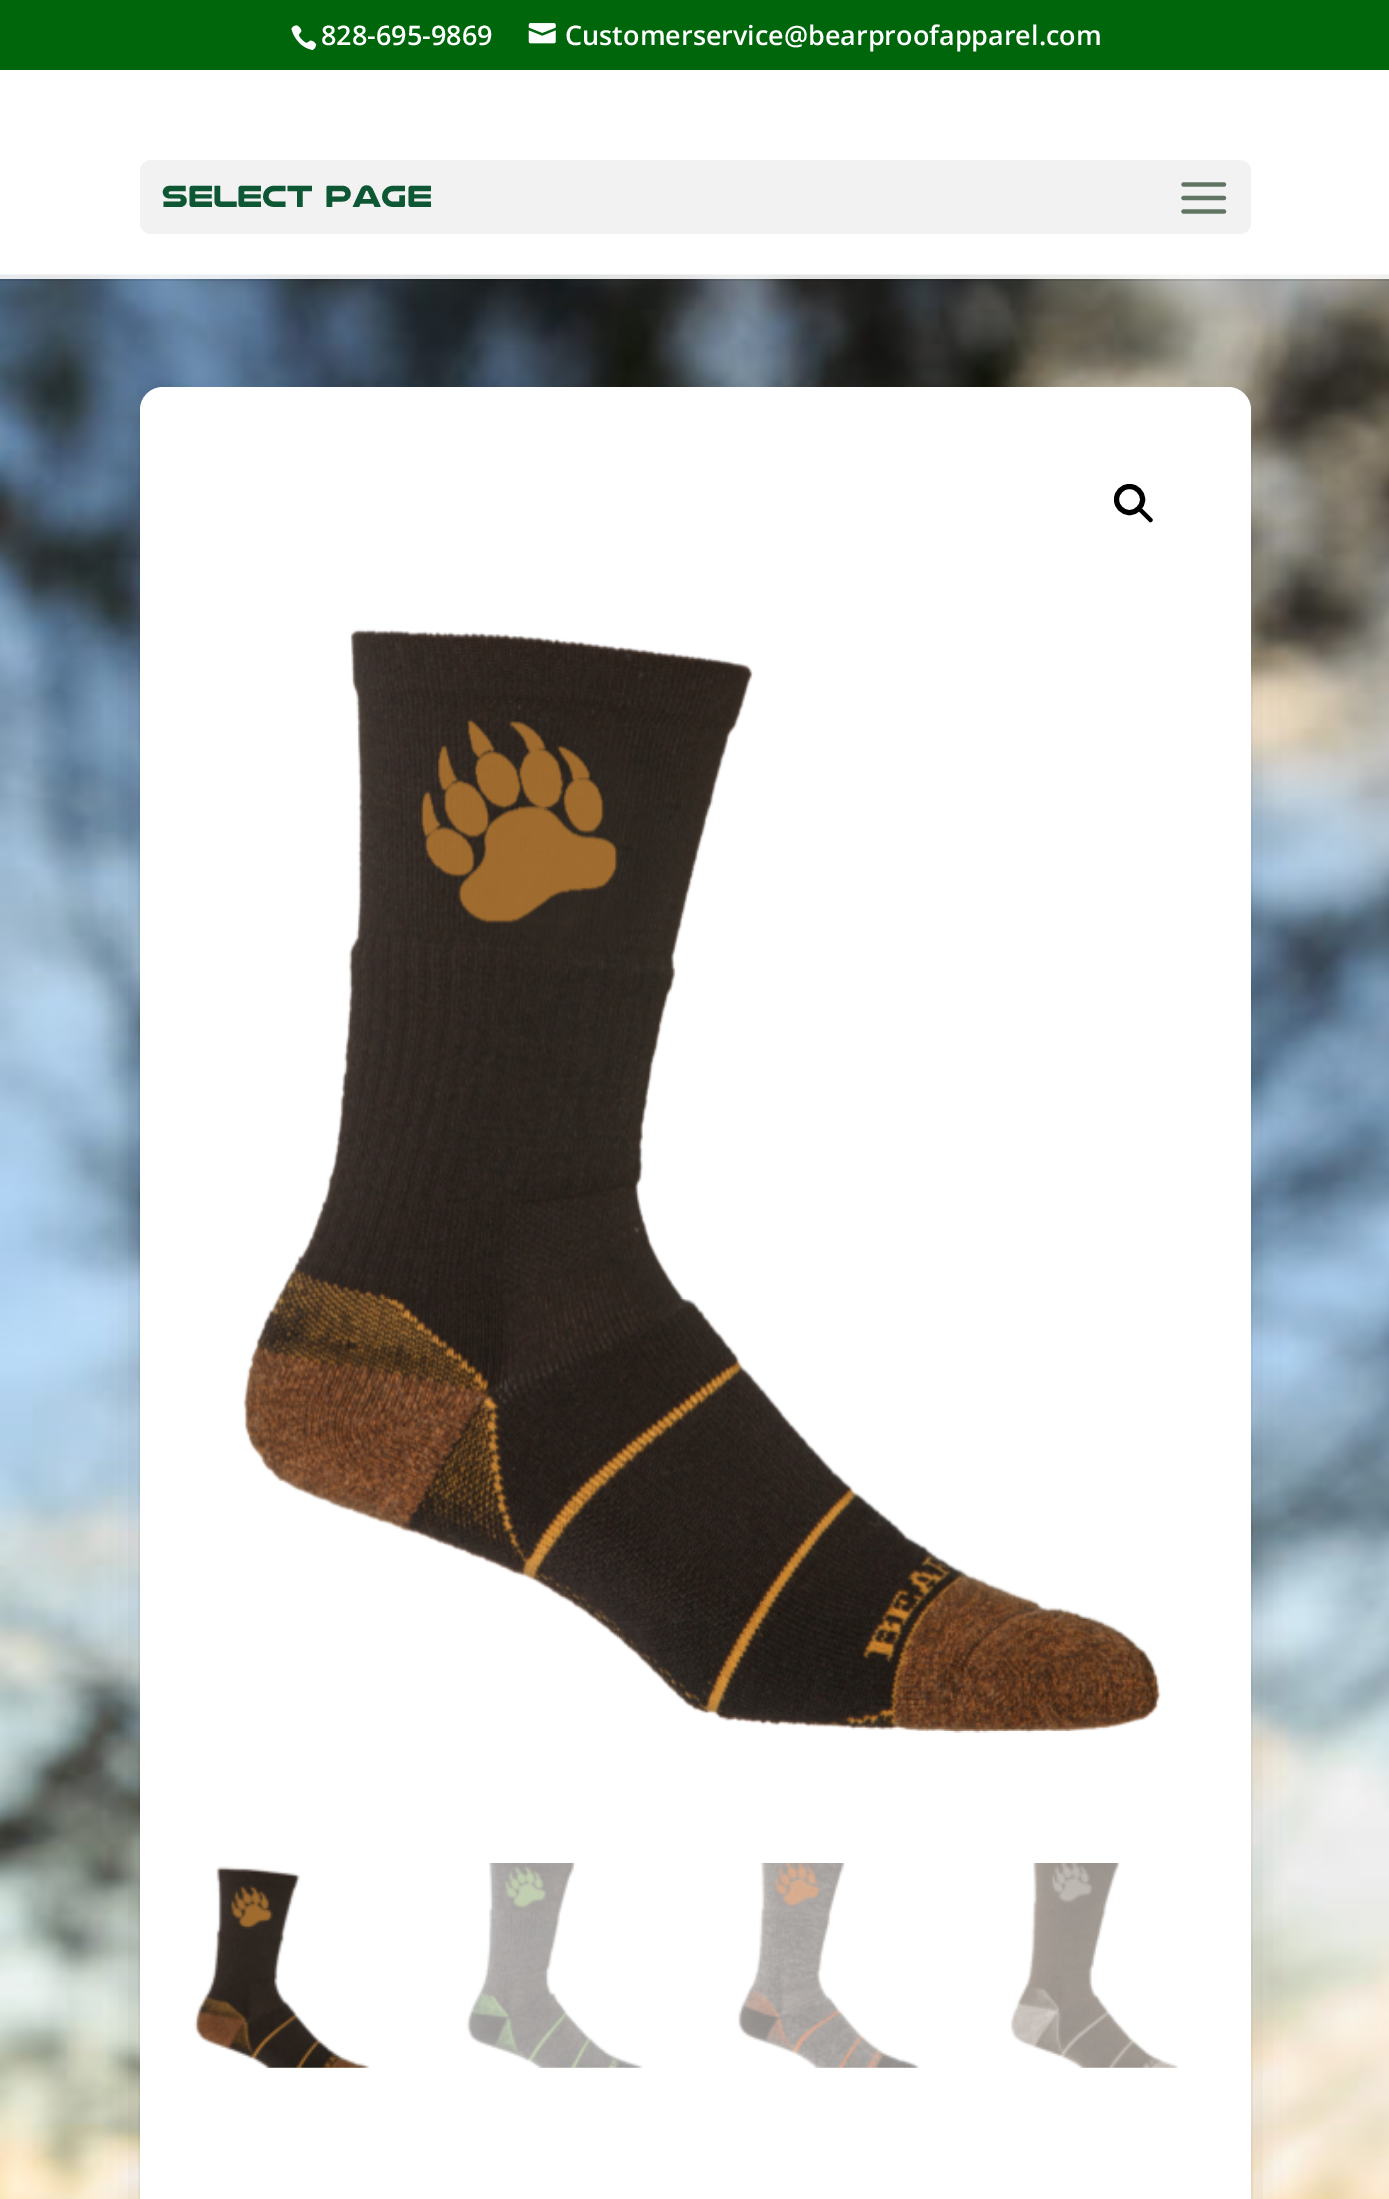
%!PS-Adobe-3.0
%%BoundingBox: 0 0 1389 2199
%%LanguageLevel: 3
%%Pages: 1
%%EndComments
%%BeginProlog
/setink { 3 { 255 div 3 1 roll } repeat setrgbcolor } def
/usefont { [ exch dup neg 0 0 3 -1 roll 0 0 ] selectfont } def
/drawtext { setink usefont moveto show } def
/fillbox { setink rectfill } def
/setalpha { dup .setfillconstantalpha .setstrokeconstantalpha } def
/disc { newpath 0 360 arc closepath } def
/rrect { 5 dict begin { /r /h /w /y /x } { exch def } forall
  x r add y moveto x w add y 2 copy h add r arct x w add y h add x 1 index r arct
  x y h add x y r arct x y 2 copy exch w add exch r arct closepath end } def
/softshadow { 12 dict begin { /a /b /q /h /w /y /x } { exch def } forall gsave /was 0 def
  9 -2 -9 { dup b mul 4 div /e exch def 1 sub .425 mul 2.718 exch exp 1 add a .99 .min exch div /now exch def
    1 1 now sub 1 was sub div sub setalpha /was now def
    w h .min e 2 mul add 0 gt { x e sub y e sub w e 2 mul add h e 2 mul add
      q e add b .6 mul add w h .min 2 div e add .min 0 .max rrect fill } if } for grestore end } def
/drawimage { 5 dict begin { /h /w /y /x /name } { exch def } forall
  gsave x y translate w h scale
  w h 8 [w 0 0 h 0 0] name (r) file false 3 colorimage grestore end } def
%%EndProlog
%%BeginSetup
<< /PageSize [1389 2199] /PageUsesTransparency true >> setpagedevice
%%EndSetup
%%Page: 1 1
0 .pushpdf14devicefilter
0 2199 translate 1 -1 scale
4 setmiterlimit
0 0 1389 2199 255 255 255 fillbox
0 0 1389 70 0 102 11 fillbox
(assets/img1.rgb) 291 25 26 26 drawimage
(828-695-9869) 321 45 /OpenSans-SemiBold 27 255 255 255 drawtext
(assets/img2.rgb) 528 23 28 21 drawimage
(Customerservice@bearproofapparel.com) 565 45 /OpenSans-SemiBold 27 255 255 255 drawtext
(assets/img4.rgb) 0 274 1389 1925 drawimage
0.1 setalpha
0 0 0 setink
0 279 moveto 0 281 lineto 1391 281 lineto 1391 72 lineto 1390 72 lineto 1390 279 lineto closepath fill
0.87 setalpha
0 274 1389 5 255 255 255 fillbox
1 setalpha
242 242 242 setink
140 160 1111 74 11 rrect fill
(Select Page) 162 207 /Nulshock-Bold 31.5 14 87 53 drawtext
(assets/img3.rgb) 1181 182 46 32 drawimage
0 0 0 setink
153 428 1085 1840 9 20 0.3 softshadow
255 255 255 setink
140 387 1111 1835 23 rrect fill
0 0 0 setink
5 setlinewidth
1129.5 499.5 13 disc stroke
1139.5 509 moveto 1140 508 1141.5 508 1142.5 509 curveto 1152 518.5 lineto 1153 519.5 1153 520.5 1152 521.5 curveto 1151 522.5 1149.5 522.5 1149 521.5 curveto 1139.5 512 lineto 1138.5 511 1138.5 510 1139.5 509 curveto closepath fill
(assets/img5.rgb) 243 629 918 1105 drawimage
(assets/img6.rgb) 194 1866 176 202 drawimage
(assets/img7.rgb) 466 1863 177 205 drawimage
(assets/img8.rgb) 738 1863 182 205 drawimage
(assets/img9.rgb) 1010 1863 168 205 drawimage
.poppdf14devicefilter showpage
%%EOF
